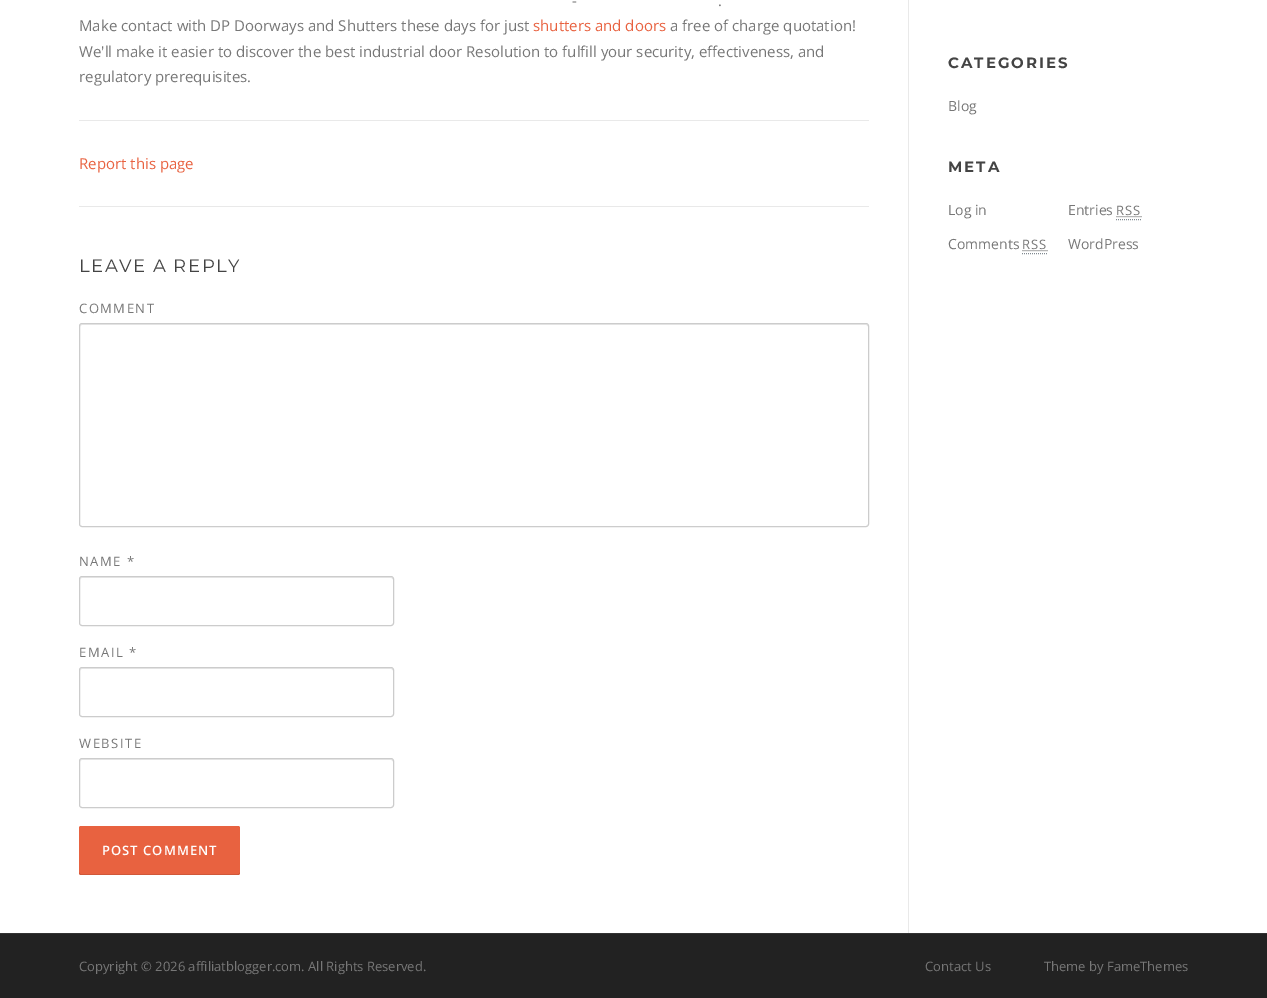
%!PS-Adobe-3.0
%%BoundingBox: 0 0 1267 998
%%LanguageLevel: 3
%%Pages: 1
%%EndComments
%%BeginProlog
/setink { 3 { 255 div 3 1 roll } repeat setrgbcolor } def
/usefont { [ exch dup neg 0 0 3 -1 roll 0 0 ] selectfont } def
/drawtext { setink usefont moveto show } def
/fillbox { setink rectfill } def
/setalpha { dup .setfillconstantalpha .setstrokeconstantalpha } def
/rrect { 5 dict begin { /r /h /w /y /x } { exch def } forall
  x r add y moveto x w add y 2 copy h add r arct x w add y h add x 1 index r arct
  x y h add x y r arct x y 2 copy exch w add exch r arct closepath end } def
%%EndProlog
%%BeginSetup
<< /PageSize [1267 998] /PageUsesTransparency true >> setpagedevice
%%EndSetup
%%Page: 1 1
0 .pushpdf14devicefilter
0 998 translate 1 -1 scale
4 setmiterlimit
0 0 1267 998 255 255 255 fillbox
908 0 1 933 233 233 233 fillbox
(-) 572 6 /OpenSans-Regular 15 119 119 119 drawtext
(.) 718 6 /OpenSans-Regular 15 119 119 119 drawtext
(Make contact with DP Doorways and Shutters these days for just) 79 31 /OpenSans-Regular 15 119 119 119 drawtext
(shutters and doors) 533 31 /OpenSans-Regular 15 232 98 64 drawtext
(a free of charge quotation!) 670 31 /OpenSans-Regular 15 119 119 119 drawtext
(We'll make it easier to discover the best industrial door Resolution to fulfill your security, effectiveness, and) 79 57 /OpenSans-Regular 15 119 119 119 drawtext
(regulatory prerequisites.) 79 82 /OpenSans-Regular 15 119 119 119 drawtext
79 120 790 1 233 233 233 fillbox
(Report this page) 79 169 /OpenSans-Regular 15 232 98 64 drawtext
79 206 790 1 233 233 233 fillbox
/Montserrat-Regular 18 usefont
68 68 68 setink
79 272 moveto 1.5 0 (LEAVE A REPLY) ashow
/OpenSans-Regular 13 usefont
119 119 119 setink
79 313 moveto 1.5 0 (COMMENT) ashow
235 235 235 setink
82 325 moveto 866 325 lineto 867 325 868 326 868 327 curveto 868 326 868 324 866 324 curveto 82 324 lineto 80 324 80 326 80 327 curveto 80 326 81 325 82 325 curveto closepath fill
204 204 204 setink
79.5 323.5 789 203 2.5 rrect stroke
119 119 119 setink
79 566 moveto 1.5 0 (NAME *) ashow
235 235 235 setink
82 578 moveto 391 578 lineto 392 578 393 579 393 580 curveto 393 579 393 577 391 577 curveto 81 577 lineto 80 578 lineto 80 580 lineto 80 579 81 578 82 578 curveto closepath fill
204 204 204 setink
79.5 576.5 314 49 2.5 rrect stroke
119 119 119 setink
79 657 moveto 1.5 0 (EMAIL *) ashow
235 235 235 setink
82 669 moveto 391 669 lineto 392 669 393 670 393 671 curveto 393 670 393 668 391 668 curveto 81 668 lineto 80 669 lineto 80 671 lineto 80 670 81 669 82 669 curveto closepath fill
204 204 204 setink
79.5 667.5 314 49 2.5 rrect stroke
119 119 119 setink
79 748 moveto 1.5 0 (WEBSITE) ashow
235 235 235 setink
82 760 moveto 391 760 lineto 392 760 393 761 393 762 curveto 393 761 393 759 391 759 curveto 81 759 lineto 80 760 lineto 80 762 lineto 80 761 81 760 82 760 curveto closepath fill
204 204 204 setink
79.5 758.5 314 49 2.5 rrect stroke
232 98 64 setink
79 826 161 49 2 rrect fill
0.1 setalpha
0 0 0 setink
79 872 moveto 79 873 79 875 81 875 curveto 238 875 lineto 240 875 240 873 240 872 curveto 240 873 239 874 238 874 curveto 81 874 lineto 80 874 79 873 79 872 curveto closepath fill
/OpenSans-SemiBold 13 usefont
1 setalpha
255 255 255 setink
102 855 moveto 1 0 (POST COMMENT) ashow
/Montserrat-Bold 15 usefont
68 68 68 setink
948 68 moveto 2 0 (CATEGORIES) ashow
(Blog) 948 111 /OpenSans-Regular 14 119 119 119 drawtext
/Montserrat-Bold 15 usefont
68 68 68 setink
948 172 moveto 2 0 (META) ashow
(Log in) 948 215 /OpenSans-Regular 14 119 119 119 drawtext
(Entries) 1068 215 /OpenSans-Regular 14 119 119 119 drawtext
/OpenSans-Regular 13 usefont
1116 215 moveto 1 0 (RSS) ashow
129 138 145 setink
[1 1] 0 setdash
1116 219.5 moveto 1142 219.5 lineto stroke
119 119 119 setink
1116.5 216.5 moveto 1142 216.5 lineto stroke
(Comments) 948 249 /OpenSans-Regular 14 119 119 119 drawtext
/OpenSans-Regular 13 usefont
1022 249 moveto 1 0 (RSS) ashow
129 138 145 setink
1022 253.5 moveto 1048 253.5 lineto stroke
119 119 119 setink
1022.5 250.5 moveto 1048 250.5 lineto stroke
(WordPress) 1068 249 /OpenSans-Regular 14 119 119 119 drawtext
0 934 1267 64 34 34 34 fillbox
0 933 1267 1 51 51 51 fillbox
(Copyright © 2026 affiliatblogger.com. All Rights Reserved.) 79 971 /OpenSans-Regular 13 119 119 119 drawtext
(Contact Us) 925 971 /OpenSans-Regular 13 119 119 119 drawtext
(Theme by FameThemes) 1044 971 /OpenSans-Regular 13 119 119 119 drawtext
.poppdf14devicefilter showpage
%%EOF
